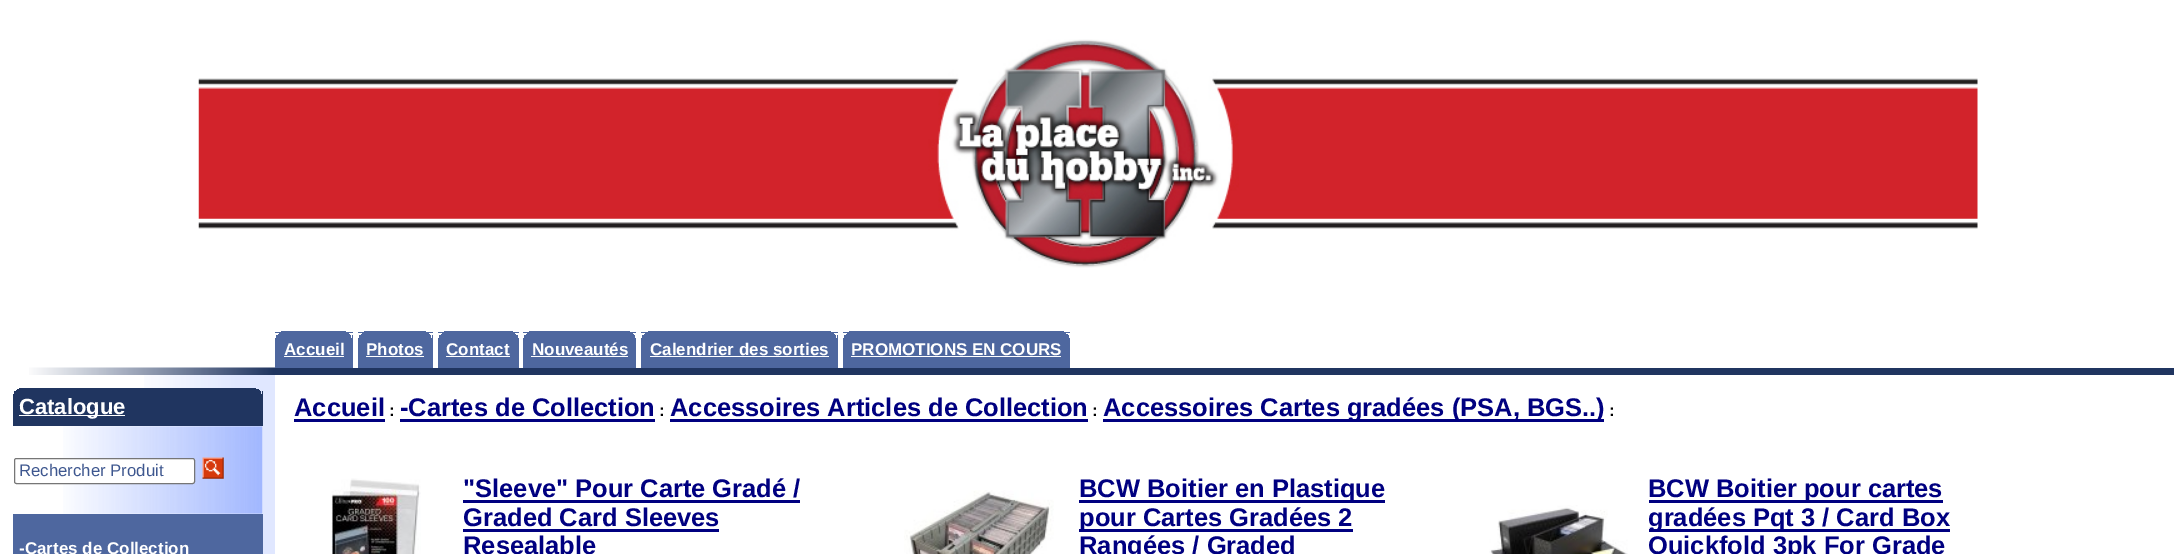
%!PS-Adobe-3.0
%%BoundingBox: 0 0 2174 554
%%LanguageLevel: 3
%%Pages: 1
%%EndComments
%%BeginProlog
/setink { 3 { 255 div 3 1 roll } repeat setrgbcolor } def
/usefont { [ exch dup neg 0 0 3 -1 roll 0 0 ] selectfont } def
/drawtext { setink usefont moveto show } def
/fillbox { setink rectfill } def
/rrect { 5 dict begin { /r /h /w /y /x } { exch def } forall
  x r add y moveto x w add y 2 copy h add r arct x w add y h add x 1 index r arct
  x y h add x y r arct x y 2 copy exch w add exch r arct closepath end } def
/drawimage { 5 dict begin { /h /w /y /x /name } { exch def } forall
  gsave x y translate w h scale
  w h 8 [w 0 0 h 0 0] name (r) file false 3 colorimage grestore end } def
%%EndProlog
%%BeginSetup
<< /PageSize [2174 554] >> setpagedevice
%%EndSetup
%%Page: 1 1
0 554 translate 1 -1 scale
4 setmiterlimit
0 0 2174 554 255 255 255 fillbox
(assets/img1.rgb) 198 39 1780 229 drawimage
275 331 78 37 78 103 159 fillbox
346 331 7 1 255 255 255 fillbox
275 331 6 1 255 255 255 fillbox
349 333 4 1 255 255 255 fillbox
275 333 4 1 255 255 255 fillbox
350 334 3 1 255 255 255 fillbox
275 334 3 1 255 255 255 fillbox
351 335 1 3 255 255 255 fillbox
275 335 1 3 255 255 255 fillbox
(Accueil) 284 355 /LiberationSans-Bold 17 255 255 255 drawtext
284 356 60 1 255 255 255 fillbox
358 331 75 37 78 103 159 fillbox
426 331 7 1 255 255 255 fillbox
358 331 6 1 255 255 255 fillbox
429 333 4 1 255 255 255 fillbox
358 333 4 1 255 255 255 fillbox
430 334 3 1 255 255 255 fillbox
358 334 3 1 255 255 255 fillbox
431 335 1 3 255 255 255 fillbox
358 335 1 3 255 255 255 fillbox
(Photos) 366 355 /LiberationSans-Bold 17 255 255 255 drawtext
366 356 58 1 255 255 255 fillbox
438 331 81 37 78 103 159 fillbox
513 331 6 1 255 255 255 fillbox
438 331 6 1 255 255 255 fillbox
515 333 4 1 255 255 255 fillbox
438 333 4 1 255 255 255 fillbox
516 334 3 1 255 255 255 fillbox
438 334 3 1 255 255 255 fillbox
518 335 1 3 255 255 255 fillbox
438 335 1 3 255 255 255 fillbox
(Contact) 446 355 /LiberationSans-Bold 17 255 255 255 drawtext
446 356 64 1 255 255 255 fillbox
523 331 113 37 78 103 159 fillbox
630 331 6 1 255 255 255 fillbox
523 331 6 1 255 255 255 fillbox
633 333 4 1 255 255 255 fillbox
523 333 4 1 255 255 255 fillbox
634 334 3 1 255 255 255 fillbox
523 334 3 1 255 255 255 fillbox
635 335 1 3 255 255 255 fillbox
523 335 1 3 255 255 255 fillbox
(Nouveautés) 532 355 /LiberationSans-Bold 17 255 255 255 drawtext
531 356 97 1 255 255 255 fillbox
641 331 197 37 78 103 159 fillbox
831 331 7 1 255 255 255 fillbox
641 331 7 1 255 255 255 fillbox
834 333 4 1 255 255 255 fillbox
641 333 4 1 255 255 255 fillbox
835 334 3 1 255 255 255 fillbox
641 334 3 1 255 255 255 fillbox
836 335 1 3 255 255 255 fillbox
641 335 1 3 255 255 255 fillbox
(Calendrier des sorties) 650 355 /LiberationSans-Bold 17 255 255 255 drawtext
650 356 179 1 255 255 255 fillbox
843 331 227 37 78 103 159 fillbox
1064 331 6 1 255 255 255 fillbox
843 331 6 1 255 255 255 fillbox
1066 333 4 1 255 255 255 fillbox
843 333 4 1 255 255 255 fillbox
1068 334 3 1 255 255 255 fillbox
843 334 3 1 255 255 255 fillbox
1069 335 1 3 255 255 255 fillbox
843 335 1 3 255 255 255 fillbox
(PROMOTIONS EN COURS) 851 355 /LiberationSans-Bold 17 255 255 255 drawtext
851 356 210 1 255 255 255 fillbox
(assets/img2.rgb) 29 367 246 8 drawimage
275 368 1899 7 32 53 96 fillbox
(assets/img3.rgb) 144 375 131 179 drawimage
13 388 250 38 32 53 96 fillbox
13 388 6 1 255 255 255 fillbox
13 389 4 1 255 255 255 fillbox
13 390 3 1 255 255 255 fillbox
13 391 1 3 255 255 255 fillbox
256 388 7 1 224 231 255 fillbox
259 389 4 1 224 231 255 fillbox
260 390 3 1 224 231 255 fillbox
261 391 1 3 224 231 255 fillbox
19 415 106 1 255 255 255 fillbox
(Catalogue) 19 414 /LiberationSans-Bold 22 255 255 255 drawtext
144 426 119 88 255 255 255 fillbox
(assets/img4.rgb) 63 426 200 88 drawimage
14.5 458.5 180 25 2 rrect gsave fill grestore
118 118 118 setink
stroke
(Rechercher Produit) 19 476 /LiberationSans-Regular 16.75 62 87 143 drawtext
(assets/img5.rgb) 202 457 22 22 drawimage
13 514 250 40 78 103 159 fillbox
(-Cartes de Collection) 19 554 /LiberationSans-Bold 17 255 255 255 drawtext
(Accueil) 294 416 /LiberationSans-Bold 25.5 0 0 128 drawtext
(:) 389 416 /LiberationSans-Bold 17 0 0 0 drawtext
294 419 91 3 0 0 128 fillbox
(-Cartes de Collection) 400 416 /LiberationSans-Bold 25.5 0 0 128 drawtext
(:) 659 416 /LiberationSans-Bold 17 0 0 0 drawtext
400 419 255 3 0 0 128 fillbox
(Accessoires Articles de Collection) 670 416 /LiberationSans-Bold 25.5 0 0 128 drawtext
(:) 1092 416 /LiberationSans-Bold 17 0 0 0 drawtext
670 419 418 3 0 0 128 fillbox
1103 419 501 3 0 0 128 fillbox
(Accessoires Cartes gradées \(PSA, BGS..\)) 1103 416 /LiberationSans-Bold 25.5 0 0 128 drawtext
(:) 1609 416 /LiberationSans-Bold 17 0 0 0 drawtext
(assets/img6.rgb) 331 478 90 76 drawimage
("Sleeve" Pour Carte Gradé /) 463 497 /LiberationSans-Bold 25.5 0 0 128 drawtext
463 500 337 3 0 0 128 fillbox
(Graded Card Sleeves) 463 526 /LiberationSans-Bold 25.5 0 0 128 drawtext
463 529 256 3 0 0 128 fillbox
(Resealable) 463 554 /LiberationSans-Bold 25.5 0 0 128 drawtext
(assets/img7.rgb) 904 490 150 64 drawimage
1079 500 306 3 0 0 128 fillbox
(BCW Boitier en Plastique) 1079 497 /LiberationSans-Bold 25.5 0 0 128 drawtext
1079 529 274 3 0 0 128 fillbox
(pour Cartes Gradées 2) 1079 526 /LiberationSans-Bold 25.5 0 0 128 drawtext
(Rangées / Graded) 1079 554 /LiberationSans-Bold 25.5 0 0 128 drawtext
(assets/img8.rgb) 1489 505 139 49 drawimage
1649 500 294 3 0 0 128 fillbox
(BCW Boitier pour cartes) 1648 497 /LiberationSans-Bold 25.5 0 0 128 drawtext
1649 529 301 3 0 0 128 fillbox
(gradées Pqt 3 / Card Box) 1648 526 /LiberationSans-Bold 25.5 0 0 128 drawtext
(Quickfold 3pk For Grade) 1648 554 /LiberationSans-Bold 25.5 0 0 128 drawtext
showpage
%%EOF
